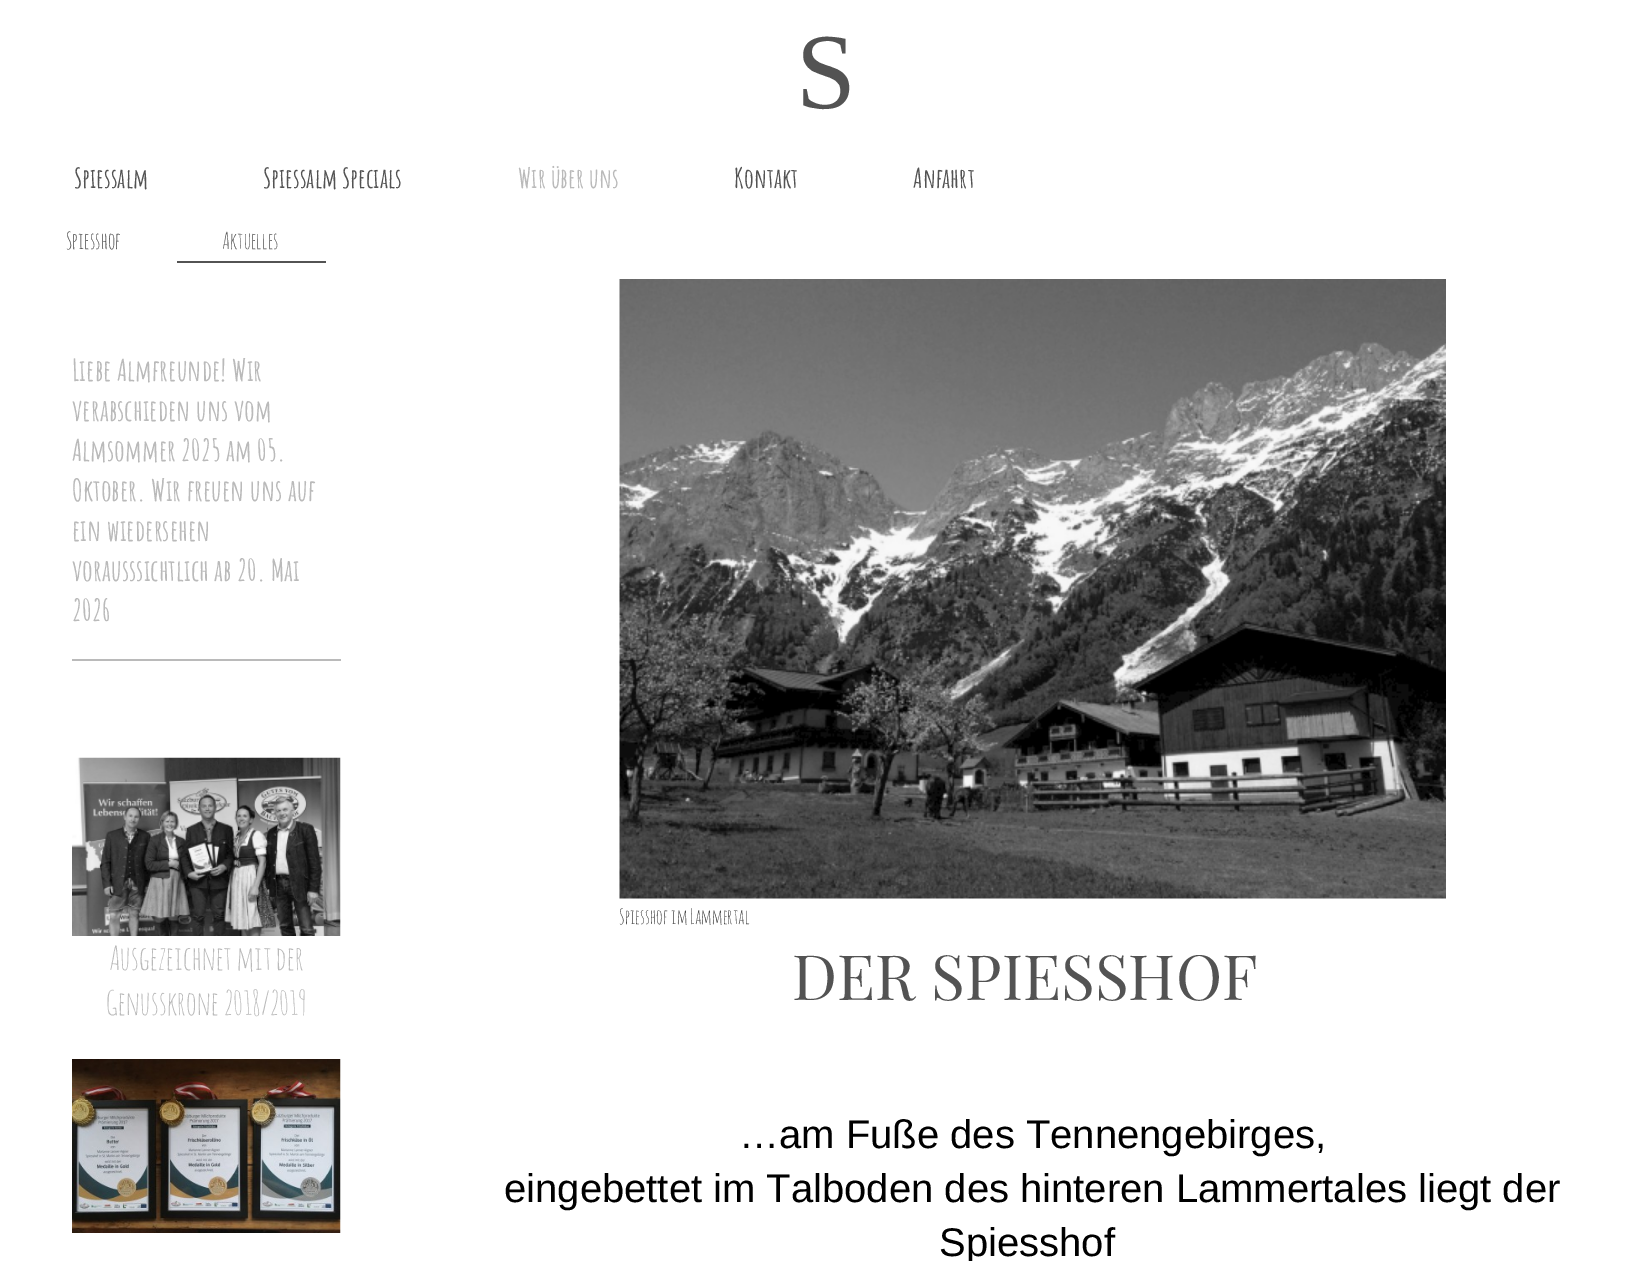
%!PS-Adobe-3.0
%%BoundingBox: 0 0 1651 1261
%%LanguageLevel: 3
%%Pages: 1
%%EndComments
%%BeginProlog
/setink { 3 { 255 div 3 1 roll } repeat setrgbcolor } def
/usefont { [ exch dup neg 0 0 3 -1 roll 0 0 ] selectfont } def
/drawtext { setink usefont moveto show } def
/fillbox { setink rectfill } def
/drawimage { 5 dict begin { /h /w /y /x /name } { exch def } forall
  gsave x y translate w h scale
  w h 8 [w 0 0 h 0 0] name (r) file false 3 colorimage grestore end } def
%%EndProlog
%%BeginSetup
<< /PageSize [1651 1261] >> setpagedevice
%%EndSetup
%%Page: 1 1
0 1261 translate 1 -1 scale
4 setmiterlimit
0 0 1651 1261 255 255 255 fillbox
(S) 796 108 /LiberationSerif-Regular 108 83 83 83 drawtext
(Spiessalm) 74 188 /AmaticSC-Bold 27.25 83 83 83 drawtext
(Spiessalm Specials) 263 188 /AmaticSC-Bold 27.25 83 83 83 drawtext
(Wir über uns) 518 188 /AmaticSC-Bold 27.25 186 186 186 drawtext
(Kontakt) 734 188 /AmaticSC-Bold 27.25 83 83 83 drawtext
(Anfahrt) 913 188 /AmaticSC-Bold 27.25 83 83 83 drawtext
(Spiesshof) 66 249 /AmaticSC-Regular 23 71 71 71 drawtext
177 261 149 2 83 83 83 fillbox
(Aktuelles) 222 249 /AmaticSC-Regular 23 83 83 83 drawtext
(Liebe Almfreunde! Wir) 72 381 /AmaticSC-Bold 29.75 186 186 186 drawtext
(verabschieden uns vom) 72 421 /AmaticSC-Bold 29.75 186 186 186 drawtext
(Almsommer 2025 am 05.) 72 461 /AmaticSC-Bold 29.75 186 186 186 drawtext
(Oktober. Wir freuen uns auf) 72 501 /AmaticSC-Bold 29.75 186 186 186 drawtext
(ein wiedersehen) 72 541 /AmaticSC-Bold 29.75 186 186 186 drawtext
(vorausssichtlich ab 20. Mai) 72 581 /AmaticSC-Bold 29.75 186 186 186 drawtext
(2026) 72 621 /AmaticSC-Bold 29.75 186 186 186 drawtext
72 659 269 2 186 186 186 fillbox
(assets/img1.rgb) 72 757 269 179 drawimage
(Ausgezeichnet mit der) 109 970 /AmaticSC-Regular 33 186 186 186 drawtext
(Genusskrone 2018/2019) 106 1015 /AmaticSC-Regular 33 186 186 186 drawtext
(assets/img2.rgb) 72 1059 269 174 drawimage
(assets/img3.rgb) 619 279 827 620 drawimage
(Spiesshof im Lammertal) 619 924 /AmaticSC-Regular 20.5 71 71 71 drawtext
(DER SPIESSHOF) 792 1000 /PlayfairDisplay-Regular 62.5 83 83 83 drawtext
(…am Fuße des Tennengebirges,) 739 1148 /LiberationSans-Regular 40 0 0 0 drawtext
(eingebettet im Talboden des hinteren Lammertales liegt der) 504 1202 /LiberationSans-Regular 40 0 0 0 drawtext
(Spiesshof) 939 1256 /LiberationSans-Regular 40 0 0 0 drawtext
showpage
%%EOF
